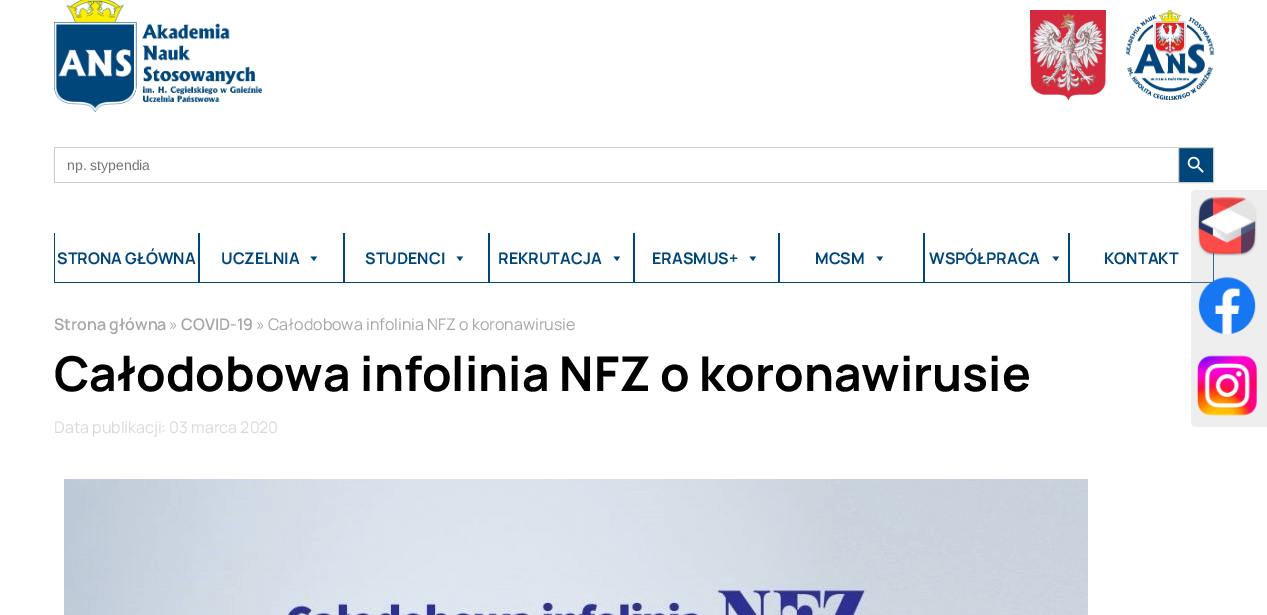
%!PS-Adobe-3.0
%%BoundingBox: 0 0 1267 615
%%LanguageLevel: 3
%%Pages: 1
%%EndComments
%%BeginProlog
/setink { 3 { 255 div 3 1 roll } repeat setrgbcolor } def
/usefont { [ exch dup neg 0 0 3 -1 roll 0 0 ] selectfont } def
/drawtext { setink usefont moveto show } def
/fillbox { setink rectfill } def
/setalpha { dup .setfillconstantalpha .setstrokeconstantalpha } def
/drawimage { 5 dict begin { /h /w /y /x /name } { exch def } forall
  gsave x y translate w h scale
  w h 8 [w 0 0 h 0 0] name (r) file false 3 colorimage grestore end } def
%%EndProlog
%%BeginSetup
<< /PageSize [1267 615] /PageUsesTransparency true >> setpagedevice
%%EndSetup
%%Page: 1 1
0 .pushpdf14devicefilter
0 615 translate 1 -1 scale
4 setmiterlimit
0 0 1267 615 255 255 255 fillbox
(assets/img1.rgb) 54 0 208 112 drawimage
(assets/img2.rgb) 1030 10 76 90 drawimage
(assets/img3.rgb) 1126 10 88 90 drawimage
54 147 1124 1 204 204 204 fillbox
54 182 1124 1 204 204 204 fillbox
54 147 1 36 204 204 204 fillbox
(np. stypendia) 67 170 /LiberationSans-Regular 14 117 117 117 drawtext
0 70 122 setink
1178.5 147.5 moveto 1213.5 147.5 lineto 1213.5 182.5 lineto 1178.5 182.5 lineto closepath gsave fill grestore
204 204 204 setink
stroke
(assets/img4.rgb) 1187 156 17 17 drawimage
198 233 1 50 0 70 122 fillbox
54 282 145 1 0 70 122 fillbox
54 233 1 50 0 70 122 fillbox
(STRONA GŁÓWNA) 57 264 /Manrope-Bold 16 0 70 122 drawtext
343 233 1 50 0 70 122 fillbox
199 282 145 1 0 70 122 fillbox
199 233 1 50 0 70 122 fillbox
(UCZELNIA) 221 264 /Manrope-Bold 16 0 70 122 drawtext
317 256.5 moveto 314 261 lineto 310.5 256.5 lineto closepath fill
488 233 1 50 0 70 122 fillbox
344 282 145 1 0 70 122 fillbox
344 233 1 50 0 70 122 fillbox
(STUDENCI) 365 264 /Manrope-Bold 16 0 70 122 drawtext
463 256.5 moveto 460 261 lineto 456.5 256.5 lineto closepath fill
633 233 1 50 0 70 122 fillbox
489 282 145 1 0 70 122 fillbox
489 233 1 50 0 70 122 fillbox
(REKRUTACJA) 498 264 /Manrope-Bold 16 0 70 122 drawtext
620 256.5 moveto 617 261 lineto 613.5 256.5 lineto closepath fill
778 233 1 50 0 70 122 fillbox
634 282 145 1 0 70 122 fillbox
634 233 1 50 0 70 122 fillbox
(ERASMUS+) 652 264 /Manrope-Bold 16 0 70 122 drawtext
756 256.5 moveto 753 261 lineto 749.5 256.5 lineto closepath fill
923 233 1 50 0 70 122 fillbox
779 282 145 1 0 70 122 fillbox
779 233 1 50 0 70 122 fillbox
(MCSM) 815 264 /Manrope-Bold 16 0 70 122 drawtext
883 256.5 moveto 880 261 lineto 876.5 256.5 lineto closepath fill
1068 233 1 50 0 70 122 fillbox
924 282 145 1 0 70 122 fillbox
924 233 1 50 0 70 122 fillbox
(WSPÓŁPRACA) 929 264 /Manrope-Bold 16 0 70 122 drawtext
1059 256.5 moveto 1056 261 lineto 1052.5 256.5 lineto closepath fill
1213 252 1 31 0 70 122 fillbox
1069 282 145 1 0 70 122 fillbox
1069 233 1 50 0 70 122 fillbox
(KONTAKT) 1104 264 /Manrope-Bold 16 0 70 122 drawtext
0.29 setalpha
196 196 196 setink
1196 190 moveto 1267 190 lineto 1267 427 lineto 1196 427 lineto 1193 427 1191 425 1191 422 curveto 1191 195 lineto 1191 192 1193 190 1196 190 curveto closepath fill
1 setalpha
(assets/img5.rgb) 1197 196 60 60 drawimage
(assets/img6.rgb) 1198 277 58 57 drawimage
(assets/img7.rgb) 1197 355 60 61 drawimage
(Strona główna) 54 330 /Manrope-SemiBold 16 166 166 166 drawtext
(») 169 330 /Manrope-Regular 16 166 166 166 drawtext
(COVID-19) 181 330 /Manrope-SemiBold 16 166 166 166 drawtext
(» Całodobowa infolinia NFZ o koronawirusie) 256 330 /Manrope-Regular 16 166 166 166 drawtext
(Całodobowa infolinia NFZ o koronawirusie) 54 391 /Manrope-Bold 48 0 0 0 drawtext
(Data publikacji: 03 marca 2020) 54 433 /Manrope-Regular 16 217 217 217 drawtext
(assets/img8.rgb) 64 479 1024 136 drawimage
.poppdf14devicefilter showpage
%%EOF
